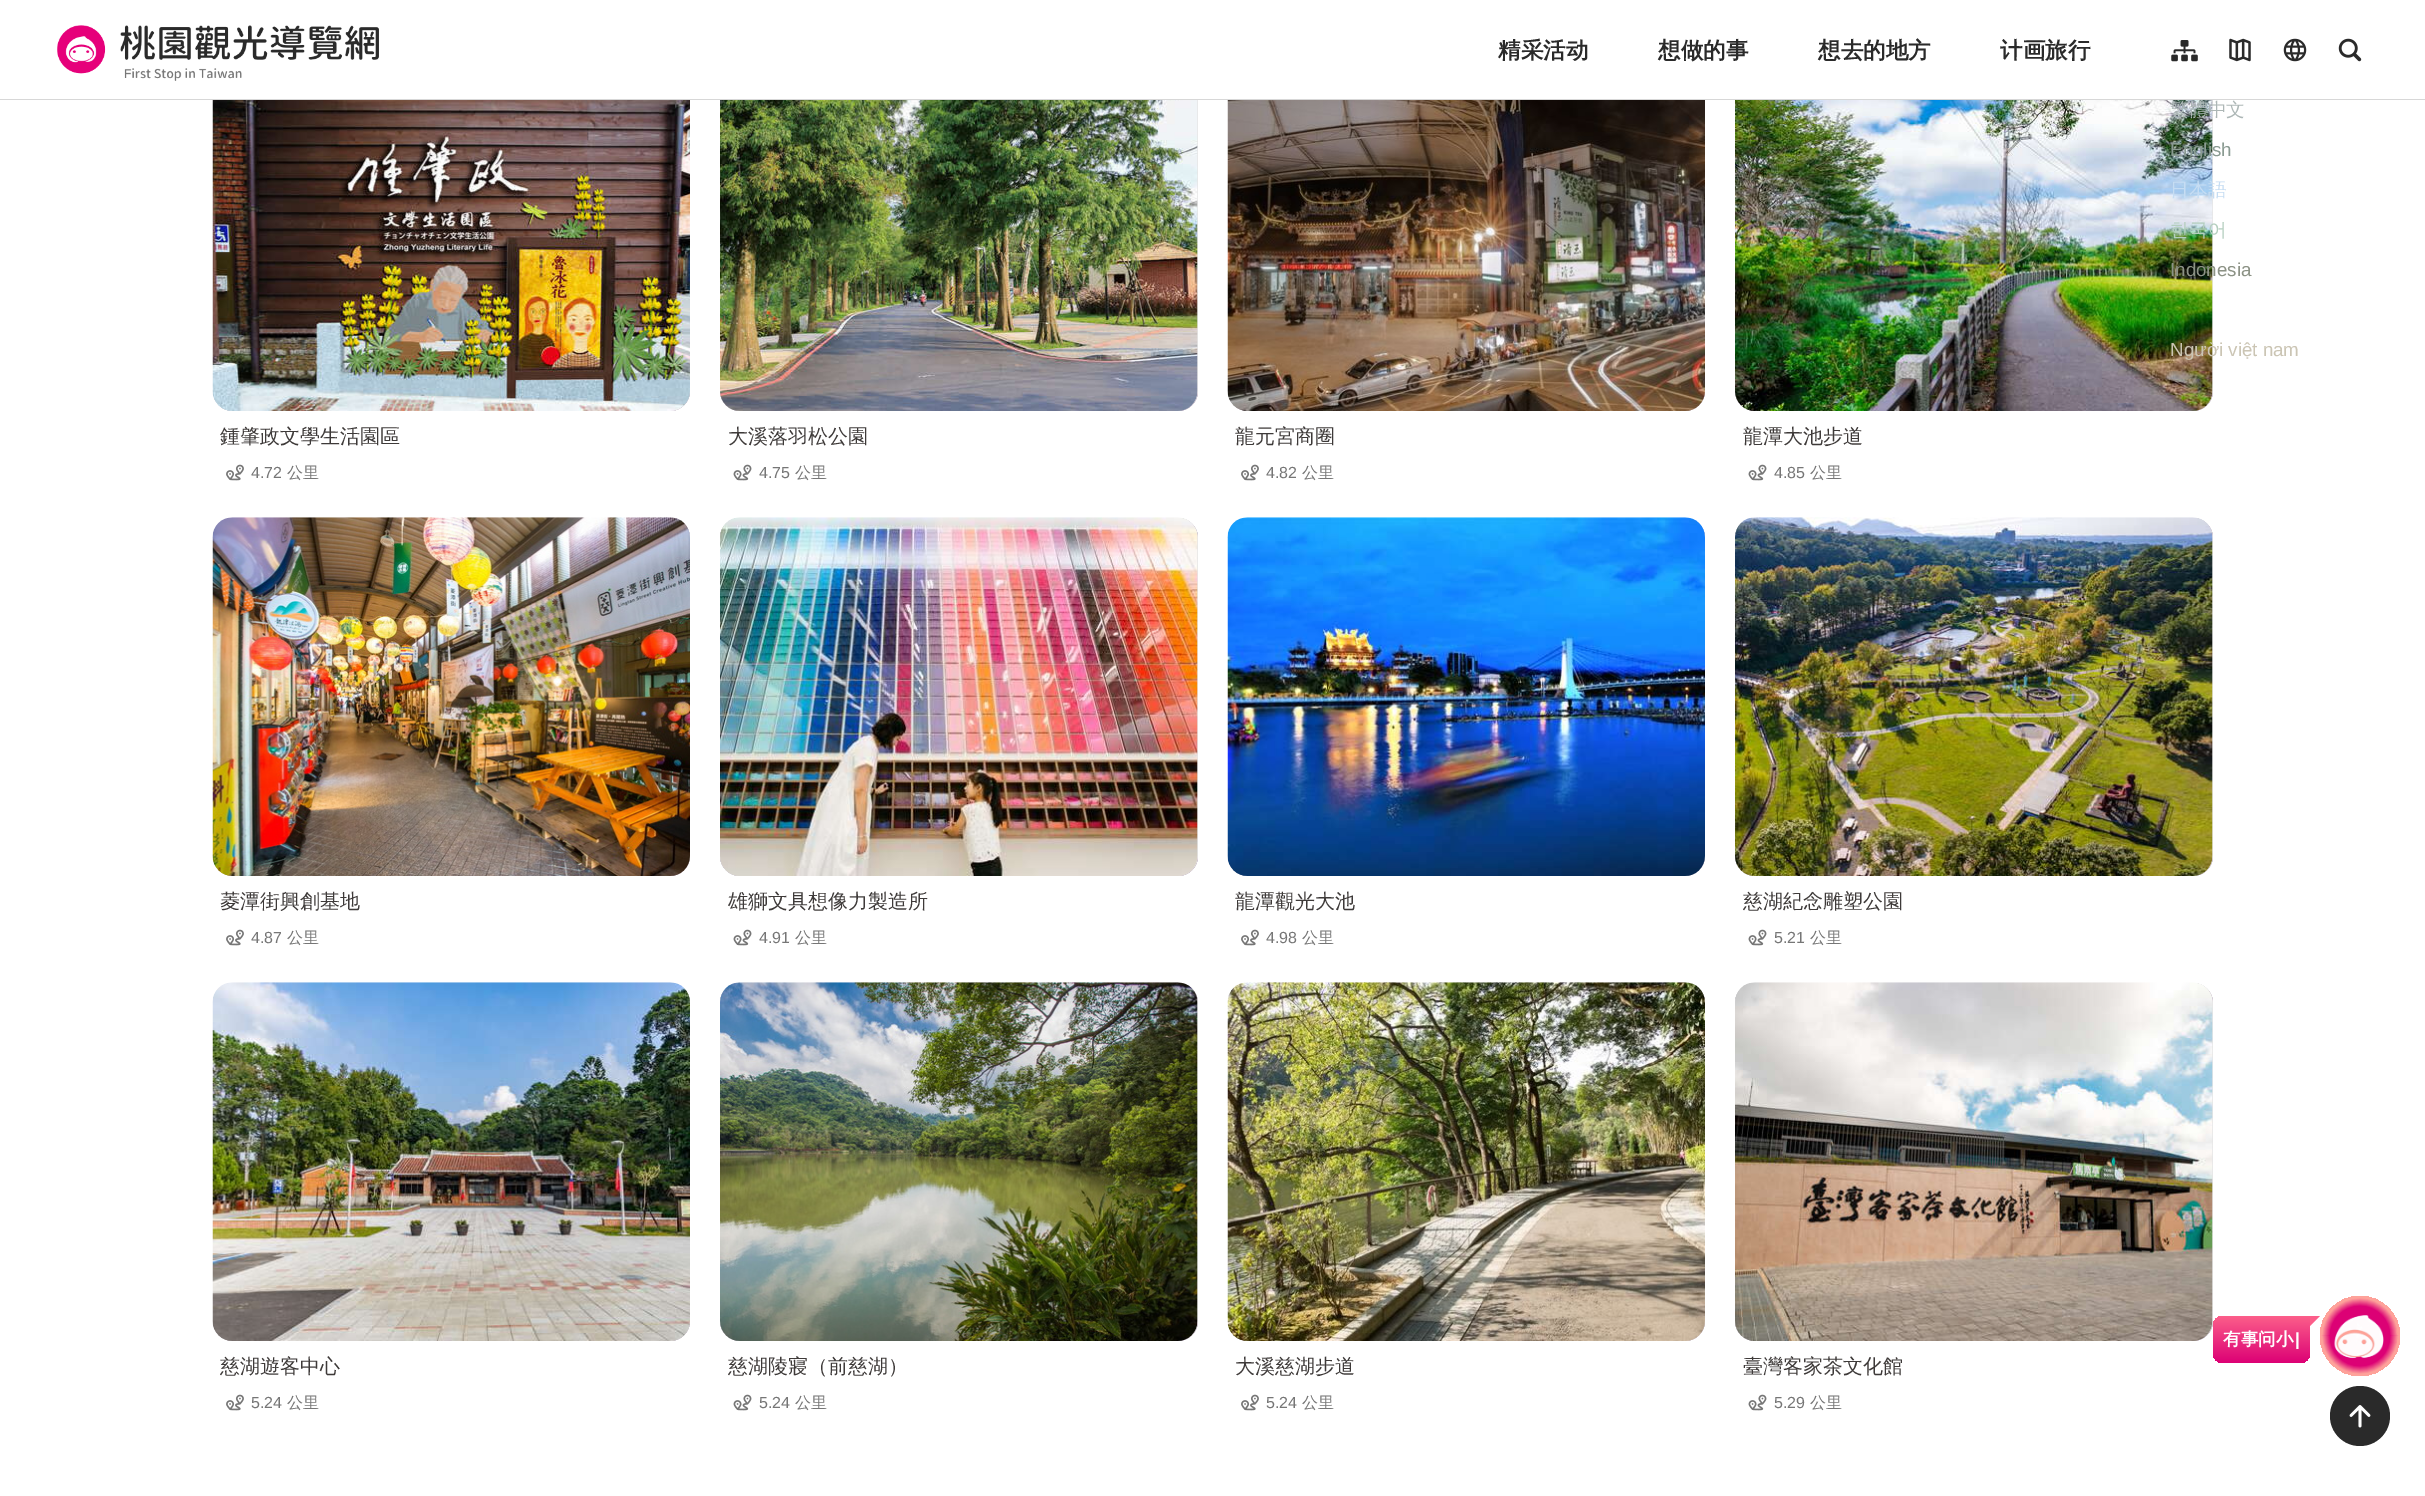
%!PS-Adobe-3.0
%%BoundingBox: 0 0 2425 1496
%%LanguageLevel: 3
%%Pages: 1
%%EndComments
%%BeginProlog
/setink { 3 { 255 div 3 1 roll } repeat setrgbcolor } def
/usefont { [ exch dup neg 0 0 3 -1 roll 0 0 ] selectfont } def
/drawtext { setink usefont moveto show } def
/fillbox { setink rectfill } def
/disc { newpath 0 360 arc closepath } def
/rrect { 5 dict begin { /r /h /w /y /x } { exch def } forall
  x r add y moveto x w add y 2 copy h add r arct x w add y h add x 1 index r arct
  x y h add x y r arct x y 2 copy exch w add exch r arct closepath end } def
/drawimage { 5 dict begin { /h /w /y /x /name } { exch def } forall
  gsave x y translate w h scale
  w h 8 [w 0 0 h 0 0] name (r) file false 3 colorimage grestore end } def
%%EndProlog
%%BeginSetup
<< /PageSize [2425 1496] >> setpagedevice
%%EndSetup
%%Page: 1 1
0 1496 translate 1 -1 scale
4 setmiterlimit
0 0 2425 1496 255 255 255 fillbox
(assets/img1.rgb) 57 25 322 56 drawimage
230 230 230 setink
720 53 478 358 20 rrect fill
1735 53 478 358 20 rrect fill
720 53 1493 46 255 255 255 fillbox
(精采活动) 1498 58 /WenQuanYiZenHei-Bold 22.5 42 42 42 drawtext
(想做的事) 1658 58 /WenQuanYiZenHei-Bold 22.5 42 42 42 drawtext
(想去的地方) 1818 58 /WenQuanYiZenHei-Bold 22.5 42 42 42 drawtext
(计画旅行) 2000 58 /WenQuanYiZenHei-Bold 22.5 42 42 42 drawtext
(assets/img2.rgb) 2171 40 27 22 drawimage
(assets/img3.rgb) 2229 38 22 24 drawimage
(assets/img4.rgb) 2338 38 24 24 drawimage
(assets/img5.rgb) 2283 38 24 24 drawimage
(assets/img11.rgb) 1735 100 478 311 drawimage
(繁體中文) 2170 116 /WenQuanYiZenHei-Medium 18.75 173 183 182 drawtext
(English) 2170 156 /LiberationSans-Regular 18.75 138 155 146 drawtext
(日本語) 2170 196 /WenQuanYiZenHei-Medium 18.75 198 221 243 drawtext
(한국어) 2170 236 /WenQuanYiZenHei-Medium 18.75 180 206 190 drawtext
(Indonesia) 2170 276 /LiberationSans-Regular 18.75 140 146 133 drawtext
(Người việt nam) 2170 356 /LiberationSans-Regular 18.75 203 197 180 drawtext
0 99 2425 1 215 215 215 fillbox
(assets/img6.rgb) 212 100 478 311 drawimage
(鍾肇政文學生活園區) 220 443 /WenQuanYiZenHei-Medium 20 62 58 57 drawtext
(assets/img7.rgb) 226 464 18 17 drawimage
(4.72) 251 478 /LiberationSans-Regular 16 118 118 118 drawtext
(公里) 287 478 /WenQuanYiZenHei-Medium 16 118 118 118 drawtext
(assets/img8.rgb) 720 100 478 311 drawimage
(大溪落羽松公園) 728 443 /WenQuanYiZenHei-Medium 20 62 58 57 drawtext
(assets/img9.rgb) 733 464 19 17 drawimage
(4.75) 759 478 /LiberationSans-Regular 16 118 118 118 drawtext
(公里) 795 478 /WenQuanYiZenHei-Medium 16 118 118 118 drawtext
(assets/img10.rgb) 1227 100 478 311 drawimage
(龍元宮商圈) 1235 443 /WenQuanYiZenHei-Medium 20 62 58 57 drawtext
(assets/img7.rgb) 1241 464 18 17 drawimage
(4.82) 1266 478 /LiberationSans-Regular 16 118 118 118 drawtext
(公里) 1302 478 /WenQuanYiZenHei-Medium 16 118 118 118 drawtext
(龍潭大池步道) 1743 443 /WenQuanYiZenHei-Medium 20 62 58 57 drawtext
(assets/img9.rgb) 1748 464 19 17 drawimage
(4.85) 1774 478 /LiberationSans-Regular 16 118 118 118 drawtext
(公里) 1810 478 /WenQuanYiZenHei-Medium 16 118 118 118 drawtext
(assets/img12.rgb) 212 517 478 359 drawimage
(菱潭街興創基地) 220 908 /WenQuanYiZenHei-Medium 20 62 58 57 drawtext
(assets/img7.rgb) 226 929 18 17 drawimage
(4.87) 251 943 /LiberationSans-Regular 16 118 118 118 drawtext
(公里) 287 943 /WenQuanYiZenHei-Medium 16 118 118 118 drawtext
230 230 230 setink
720 518 478 358 20 rrect fill
(assets/img13.rgb) 720 517 478 359 drawimage
(雄獅文具想像力製造所) 728 908 /WenQuanYiZenHei-Medium 20 62 58 57 drawtext
(assets/img9.rgb) 733 929 19 17 drawimage
(4.91) 759 943 /LiberationSans-Regular 16 118 118 118 drawtext
(公里) 795 943 /WenQuanYiZenHei-Medium 16 118 118 118 drawtext
(assets/img14.rgb) 1227 517 478 359 drawimage
(龍潭觀光大池) 1235 908 /WenQuanYiZenHei-Medium 20 62 58 57 drawtext
(assets/img7.rgb) 1241 929 18 17 drawimage
(4.98) 1266 943 /LiberationSans-Regular 16 118 118 118 drawtext
(公里) 1302 943 /WenQuanYiZenHei-Medium 16 118 118 118 drawtext
230 230 230 setink
1735 518 478 358 20 rrect fill
(assets/img15.rgb) 1735 517 478 359 drawimage
(慈湖紀念雕塑公園) 1743 908 /WenQuanYiZenHei-Medium 20 62 58 57 drawtext
(assets/img9.rgb) 1748 929 19 17 drawimage
(5.21) 1774 943 /LiberationSans-Regular 16 118 118 118 drawtext
(公里) 1810 943 /WenQuanYiZenHei-Medium 16 118 118 118 drawtext
(assets/img16.rgb) 212 982 478 359 drawimage
(慈湖遊客中心) 220 1373 /WenQuanYiZenHei-Medium 20 62 58 57 drawtext
(assets/img7.rgb) 226 1394 18 17 drawimage
(5.24) 251 1408 /LiberationSans-Regular 16 118 118 118 drawtext
(公里) 287 1408 /WenQuanYiZenHei-Medium 16 118 118 118 drawtext
230 230 230 setink
720 983 478 358 20 rrect fill
(assets/img17.rgb) 720 982 478 359 drawimage
(慈湖陵寢（前慈湖）) 728 1373 /WenQuanYiZenHei-Medium 20 62 58 57 drawtext
(assets/img9.rgb) 733 1394 19 17 drawimage
(5.24) 759 1408 /LiberationSans-Regular 16 118 118 118 drawtext
(公里) 795 1408 /WenQuanYiZenHei-Medium 16 118 118 118 drawtext
(assets/img18.rgb) 1227 982 478 359 drawimage
(大溪慈湖步道) 1235 1373 /WenQuanYiZenHei-Medium 20 62 58 57 drawtext
(assets/img7.rgb) 1241 1394 18 17 drawimage
(5.24) 1266 1408 /LiberationSans-Regular 16 118 118 118 drawtext
(公里) 1302 1408 /WenQuanYiZenHei-Medium 16 118 118 118 drawtext
230 230 230 setink
1735 983 478 358 20 rrect fill
(assets/img19.rgb) 1735 982 478 359 drawimage
(臺灣客家茶文化館) 1743 1373 /WenQuanYiZenHei-Medium 20 62 58 57 drawtext
(assets/img9.rgb) 1748 1394 19 17 drawimage
(5.29) 1774 1408 /LiberationSans-Regular 16 118 118 118 drawtext
(公里) 1810 1408 /WenQuanYiZenHei-Medium 16 118 118 118 drawtext
252 94 138 setink
2320 1316 moveto 2310 1316 lineto 2310 1326 lineto closepath fill
gsave 2223 1316 moveto 2310 1316 lineto 2310 1353 lineto 2310 1358.5 2305.5 1363 2300 1363 curveto 2223 1363 lineto 2217.5 1363 2213 1358.5 2213 1353 curveto 2213 1326 lineto 2213 1320.5 2217.5 1316 2223 1316 curveto closepath clip newpath
<< /ShadingType 2 /ColorSpace /DeviceRGB /Coords [2261 1316 2261 1363] /Extend [true true] /Function << /FunctionType 2 /Domain [0 1] /C0 [0.988 0.369 0.541] /C1 [0.863 0.004 0.459] /N 1 >> >> shfill grestore
(有事问小) 2223 1345 /WenQuanYiZenHei-Bold 17.5 255 255 255 drawtext
(|) 2295 1345 /LiberationSans-Bold 17.5 255 255 255 drawtext
gsave 2360 1336 40 disc clip newpath 2360 1336 translate 40 40 scale
<< /ShadingType 3 /ColorSpace /DeviceRGB /Coords [0 0 0 0 0 1] /Extend [true true] /Function << /FunctionType 3 /Domain [0 1] /Functions [<< /FunctionType 2 /Domain [0 1] /C0 [0.863 0.004 0.459] /C1 [0.863 0.004 0.459] /N 1 >> << /FunctionType 2 /Domain [0 1] /C0 [0.863 0.004 0.459] /C1 [0.996 0.635 0.604] /N 1 >> << /FunctionType 2 /Domain [0 1] /C0 [0.996 0.635 0.604] /C1 [0.996 0.635 0.604] /N 1 >>] /Bounds [0.75 0.95] /Encode [0 1 0 1 0 1] >> >> shfill grestore
(assets/img20.rgb) 2334 1315 50 44 drawimage
42 42 42 setink
2360 1416 30 disc fill
(assets/img21.rgb) 2349 1405 22 23 drawimage
showpage
%%EOF
